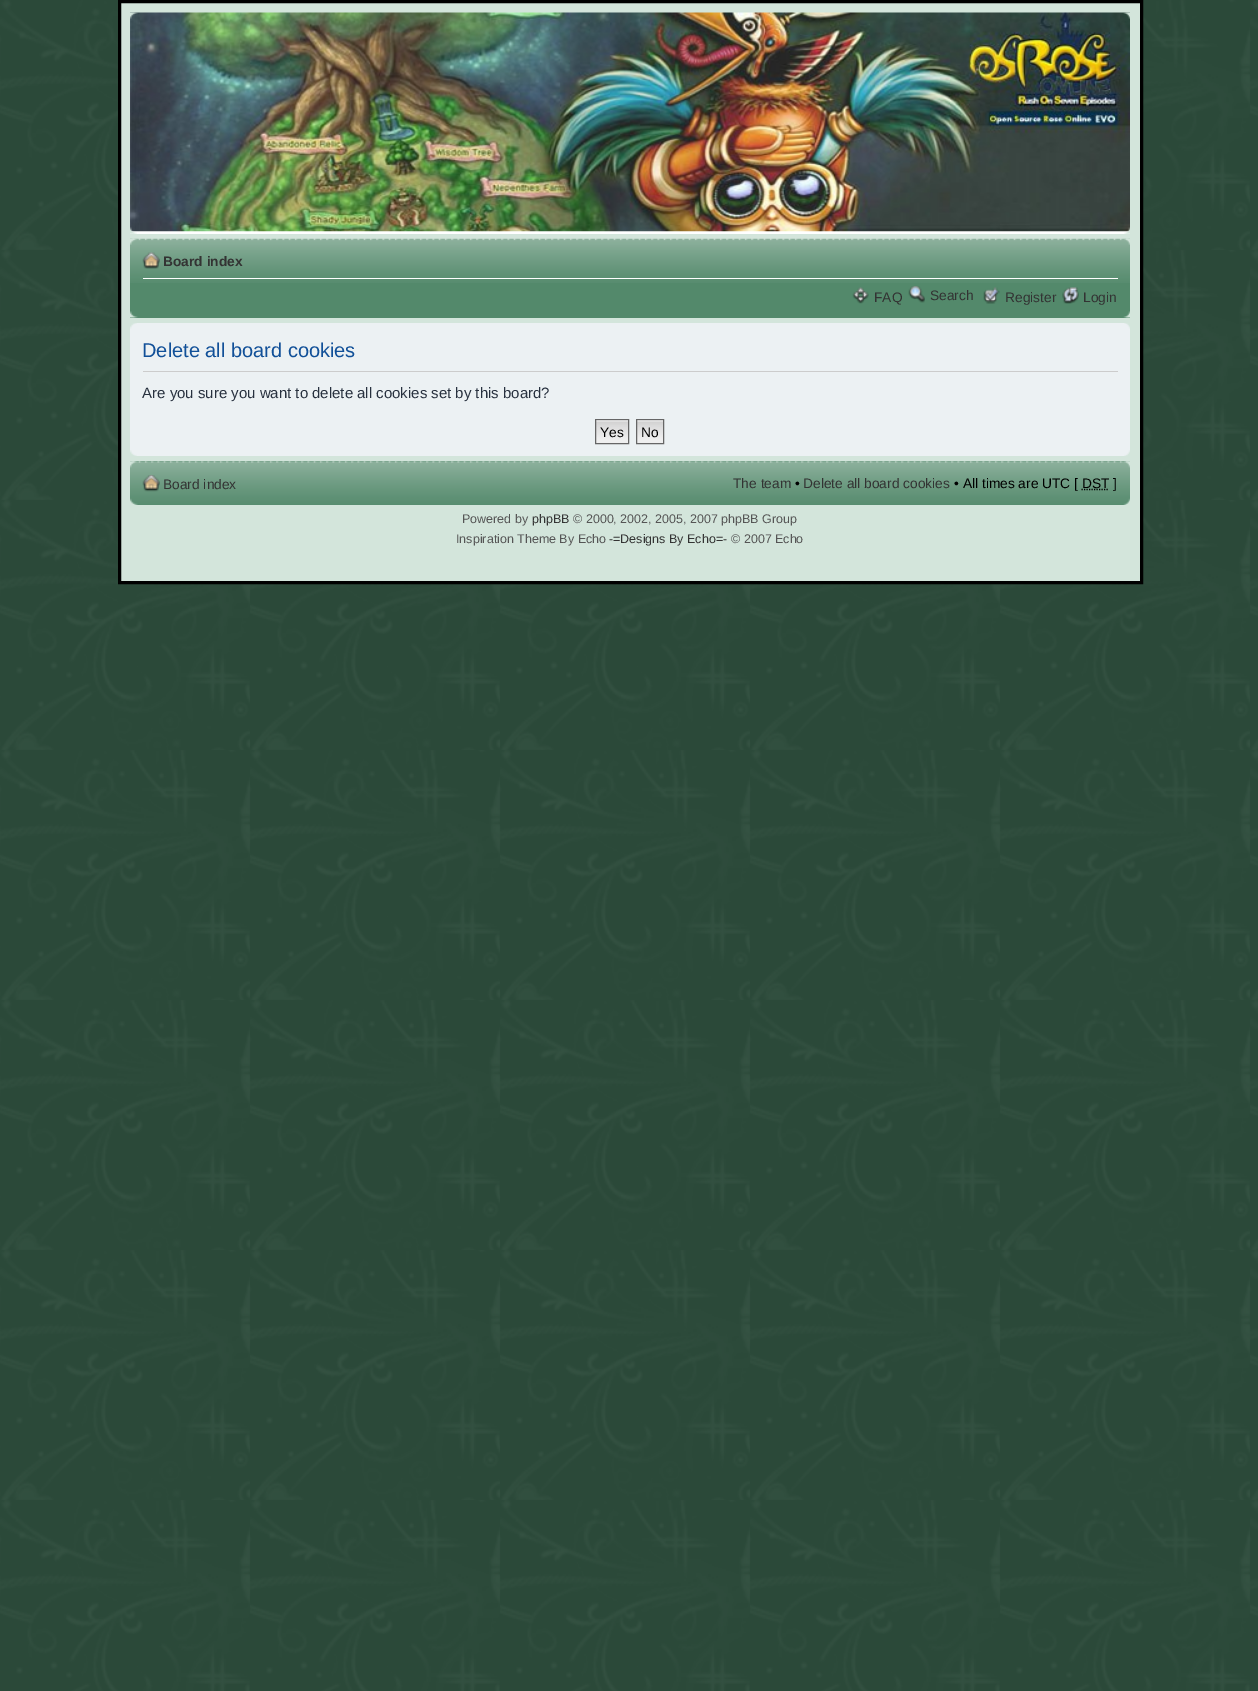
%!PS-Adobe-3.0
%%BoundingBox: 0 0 1258 1691
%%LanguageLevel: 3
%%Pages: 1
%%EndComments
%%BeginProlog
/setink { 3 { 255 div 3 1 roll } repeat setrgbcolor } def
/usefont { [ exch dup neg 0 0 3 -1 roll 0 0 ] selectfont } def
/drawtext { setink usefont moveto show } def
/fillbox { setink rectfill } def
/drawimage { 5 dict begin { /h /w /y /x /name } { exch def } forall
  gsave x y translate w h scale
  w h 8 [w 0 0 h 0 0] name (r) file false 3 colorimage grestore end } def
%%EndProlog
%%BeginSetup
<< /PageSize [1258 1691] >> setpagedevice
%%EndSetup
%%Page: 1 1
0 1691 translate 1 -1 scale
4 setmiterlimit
0 0 1258 1691 255 255 255 fillbox
(assets/img1.rgb) 0 584 1258 1107 drawimage
(assets/img2.rgb) 0 0 1258 584 drawimage
211 229 219 setink
119.5 1.5 moveto 1141.5 1.5 lineto 1141.5 582.5 lineto 119.5 582.5 lineto closepath gsave fill grestore
0 0 0 setink
3 setlinewidth
stroke
130 231 1000 3 255 255 255 fillbox
(assets/img3.rgb) 130 12 1000 220 drawimage
(assets/img4.rgb) 130 12 8 7 drawimage
(assets/img5.rgb) 1123 12 7 7 drawimage
(assets/img6.rgb) 130 227 7 7 drawimage
(assets/img7.rgb) 1124 227 6 7 drawimage
130 283 1000 35 83 137 107 fillbox
(assets/img8.rgb) 130 238 1000 45 drawimage
(assets/img9.rgb) 130 238 8 7 drawimage
(assets/img10.rgb) 1123 238 7 7 drawimage
143 278 975 1 255 255 255 fillbox
(assets/img11.rgb) 142 252 18 17 drawimage
(Board index) 163 266 /LiberationSans-Bold 13.75 51 51 51 drawtext
(assets/img12.rgb) 852 287 17 17 drawimage
(FAQ) 874 302 /LiberationSans-Regular 13.75 51 51 51 drawtext
(assets/img13.rgb) 908 286 17 17 drawimage
(Search) 930 300 /LiberationSans-Regular 13.75 51 51 51 drawtext
(assets/img14.rgb) 983 287 17 17 drawimage
(Register) 1005 302 /LiberationSans-Regular 13.75 51 51 51 drawtext
(assets/img15.rgb) 1062 287 17 17 drawimage
(Login) 1083 302 /LiberationSans-Regular 13.75 51 51 51 drawtext
(assets/img16.rgb) 130 311 8 7 drawimage
(assets/img17.rgb) 1123 311 7 7 drawimage
130 323 1000 133 236 241 243 fillbox
(assets/img18.rgb) 130 323 7 6 drawimage
(assets/img19.rgb) 1124 323 6 6 drawimage
143 371 975 1 204 204 204 fillbox
(Delete all board cookies) 142 357 /LiberationSans-Regular 20 17 80 152 drawtext
(Are you sure you want to delete all cookies set by this board?) 142 398 /LiberationSans-Regular 15 40 49 63 drawtext
(assets/img20.rgb) 596 420 32 23 drawimage
102 102 102 setink
1 setlinewidth
595.5 419.5 33 24 rectstroke
(Yes) 600 437 /LiberationSans-Regular 13.75 0 0 0 drawtext
(assets/img21.rgb) 637 420 26 23 drawimage
102 102 102 setink
636.5 419.5 27 24 rectstroke
(No) 641 437 /LiberationSans-Regular 13.75 0 0 0 drawtext
(assets/img22.rgb) 130 450 7 6 drawimage
(assets/img23.rgb) 1124 450 6 6 drawimage
(assets/img24.rgb) 130 461 1000 44 drawimage
(assets/img25.rgb) 130 461 8 7 drawimage
(assets/img26.rgb) 1123 461 7 7 drawimage
(assets/img27.rgb) 142 475 18 17 drawimage
(Board index) 163 489 /LiberationSans-Regular 13.75 51 51 51 drawtext
(The team) 733 488 /LiberationSans-Regular 13.75 51 51 51 drawtext
(•) 795 488 /LiberationSans-Regular 13.75 0 0 0 drawtext
(Delete all board cookies) 803 488 /LiberationSans-Regular 13.75 51 51 51 drawtext
(• All times are UTC [) 954 488 /LiberationSans-Regular 13.75 0 0 0 drawtext
1.2 setlinewidth
[1.25 1.25] 0 setdash
1081.5 489.5 moveto 1109 489.5 lineto stroke
(DST ]) 1082 488 /LiberationSans-Regular 13.75 0 0 0 drawtext
(assets/img28.rgb) 130 498 8 7 drawimage
(assets/img29.rgb) 1123 498 7 7 drawimage
(Powered by) 462 523 /LiberationSans-Regular 12.5 85 85 85 drawtext
(phpBB) 532 523 /LiberationSans-Regular 12.5 51 51 51 drawtext
(© 2000, 2002, 2005, 2007 phpBB Group) 573 523 /LiberationSans-Regular 12.5 85 85 85 drawtext
(Inspiration Theme By Echo) 456 543 /LiberationSans-Regular 12.5 85 85 85 drawtext
(-=Designs By Echo=-) 609 543 /LiberationSans-Regular 12.5 51 51 51 drawtext
(© 2007 Echo) 731 543 /LiberationSans-Regular 12.5 85 85 85 drawtext
showpage
%%EOF
